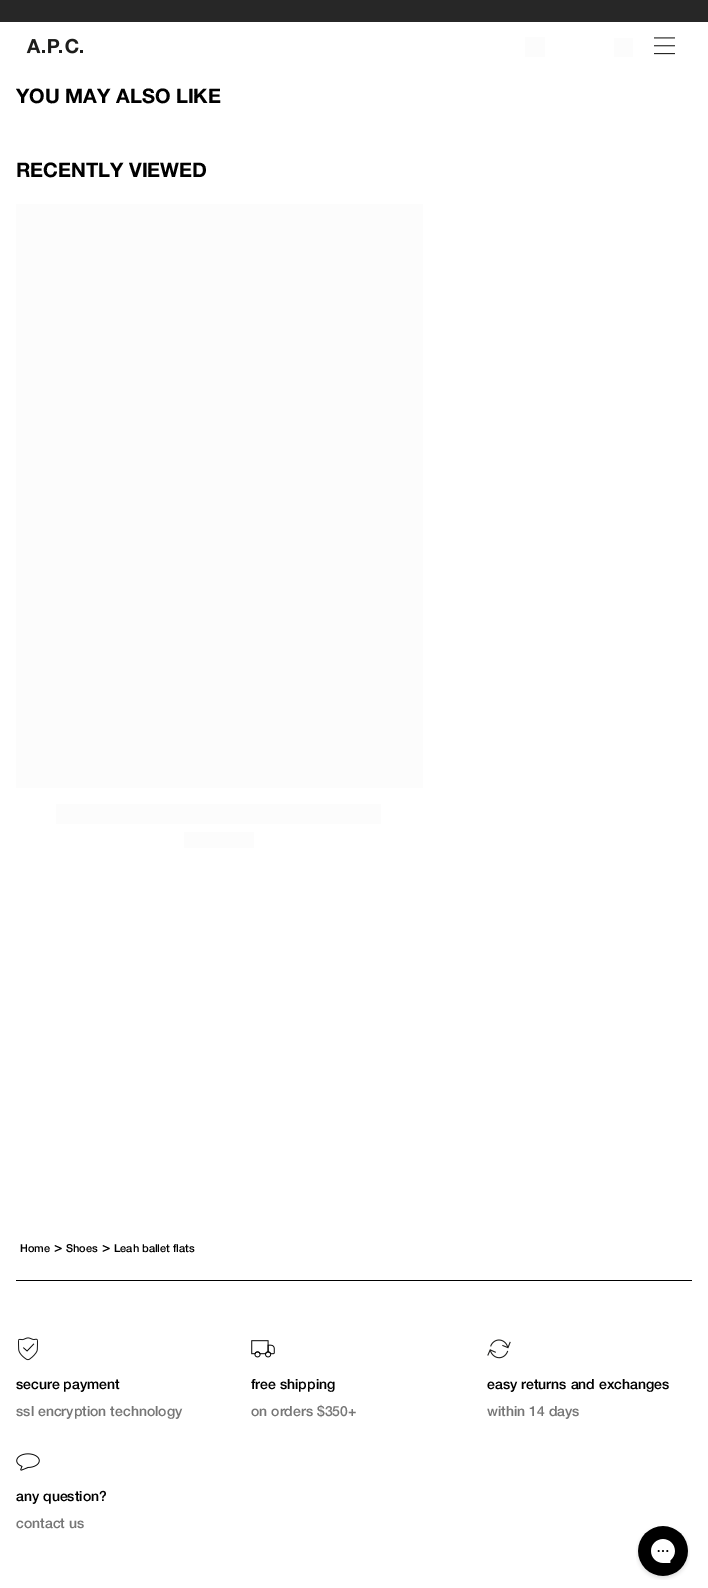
%!PS-Adobe-3.0
%%BoundingBox: 0 0 708 1588
%%LanguageLevel: 3
%%Pages: 1
%%EndComments
%%BeginProlog
/setink { 3 { 255 div 3 1 roll } repeat setrgbcolor } def
/usefont { [ exch dup neg 0 0 3 -1 roll 0 0 ] selectfont } def
/drawtext { setink usefont moveto show } def
/fillbox { setink rectfill } def
/drawimage { 5 dict begin { /h /w /y /x /name } { exch def } forall
  gsave x y translate w h scale
  w h 8 [w 0 0 h 0 0] name (r) file false 3 colorimage grestore end } def
%%EndProlog
%%BeginSetup
<< /PageSize [708 1588] >> setpagedevice
%%EndSetup
%%Page: 1 1
0 1588 translate 1 -1 scale
4 setmiterlimit
0 0 708 1588 255 255 255 fillbox
0 0 708 22 39 39 39 fillbox
(assets/img1.rgb) 26 38 57 16 drawimage
525 37 20 20 252 252 252 fillbox
614 38 19 19 252 252 252 fillbox
(assets/img2.rgb) 654 37 21 18 drawimage
(YOU MAY ALSO LIKE) 16 103 /HelveticaNeue-Bold 20 0 0 0 drawtext
(RECENTLY VIEWED) 16 177 /HelveticaNeue-Bold 20 0 0 0 drawtext
16 204 407 584 252 252 252 fillbox
56 804 325 20 252 252 252 fillbox
184 832 70 16 252 252 252 fillbox
(Home) 20 1252 /HelveticaNeue-Medium 11 0 0 0 drawtext
(>) 54 1252 /HelveticaNeue-Medium 14 0 0 0 drawtext
(Shoes) 66 1252 /HelveticaNeue-Medium 11 0 0 0 drawtext
(>) 102 1252 /HelveticaNeue-Medium 14 0 0 0 drawtext
(Leah ballet flats) 114 1252 /HelveticaNeue-Medium 11 0 0 0 drawtext
16 1280 676 1 0 0 0 fillbox
(assets/img3.rgb) 18 1337 20 24 drawimage
(secure payment) 16 1389 /HelveticaNeue-Medium 14 0 0 0 drawtext
(ssl encryption technology) 16 1416 /HelveticaNeue-Medium 14 118 118 118 drawtext
(assets/img4.rgb) 251 1340 24 18 drawimage
(free shipping) 251 1389 /HelveticaNeue-Medium 14 0 0 0 drawtext
(on orders $350+) 251 1416 /HelveticaNeue-Medium 14 118 118 118 drawtext
(assets/img5.rgb) 487 1339 24 20 drawimage
(easy returns and exchanges) 487 1389 /HelveticaNeue-Medium 14 0 0 0 drawtext
(within 14 days) 487 1416 /HelveticaNeue-Medium 14 118 118 118 drawtext
(assets/img6.rgb) 16 1453 24 18 drawimage
(any question?) 16 1501 /HelveticaNeue-Medium 14 0 0 0 drawtext
(contact us) 16 1528 /HelveticaNeue-Medium 14 118 118 118 drawtext
(assets/img7.rgb) 636 1526 54 54 drawimage
showpage
%%EOF
